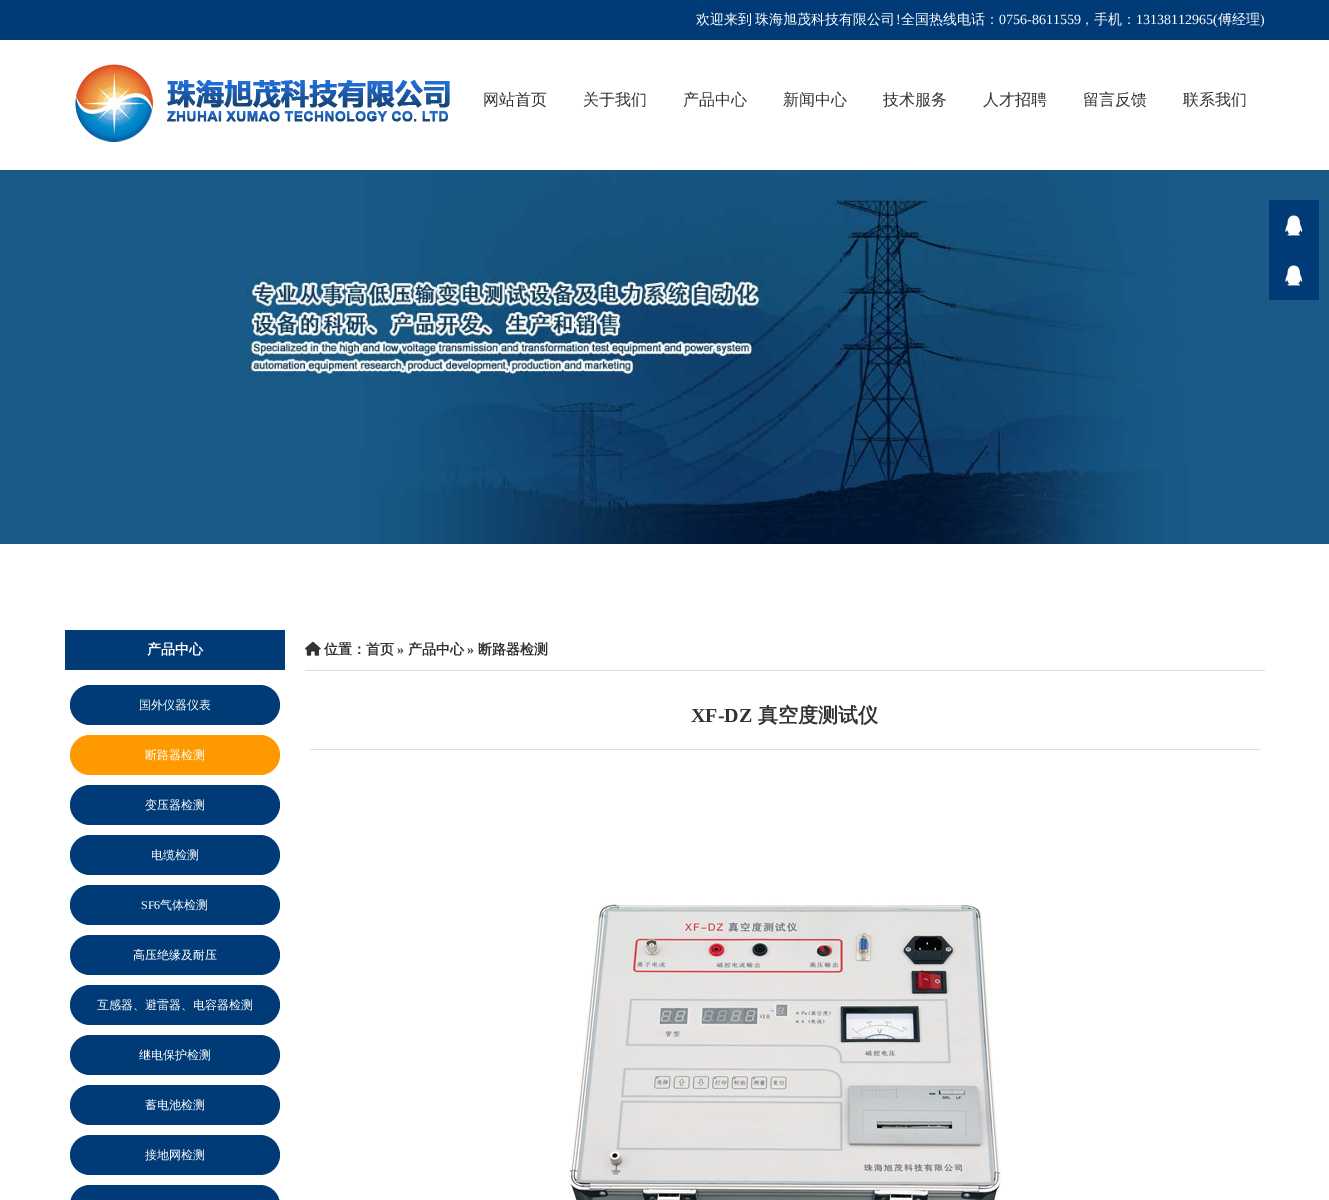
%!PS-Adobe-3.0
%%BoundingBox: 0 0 1329 1200
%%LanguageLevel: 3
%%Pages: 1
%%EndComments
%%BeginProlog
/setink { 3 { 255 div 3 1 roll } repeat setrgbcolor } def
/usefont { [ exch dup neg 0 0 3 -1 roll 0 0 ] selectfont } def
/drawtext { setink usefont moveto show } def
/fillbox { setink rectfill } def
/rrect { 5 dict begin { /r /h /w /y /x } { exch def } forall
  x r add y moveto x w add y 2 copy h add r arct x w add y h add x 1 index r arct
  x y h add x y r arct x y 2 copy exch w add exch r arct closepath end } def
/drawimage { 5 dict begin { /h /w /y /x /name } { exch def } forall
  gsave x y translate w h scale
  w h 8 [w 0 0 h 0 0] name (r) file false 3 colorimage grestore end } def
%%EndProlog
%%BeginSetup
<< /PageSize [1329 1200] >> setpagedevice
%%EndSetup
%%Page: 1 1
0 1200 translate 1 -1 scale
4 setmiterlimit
0 0 1329 1200 255 255 255 fillbox
0 0 1329 40 0 59 119 fillbox
/WenQuanYiZenHei-Medium 14 usefont
255 255 255 setink
696 24 moveto -1 0 32 (欢迎来到 珠海旭茂科技有限公司) widthshow
(!) 896 24 /LiberationSerif-Regular 14 255 255 255 drawtext
(全国热线电话：) 901 24 /WenQuanYiZenHei-Medium 14 255 255 255 drawtext
(0756-8611559) 999 24 /LiberationSerif-Regular 14 255 255 255 drawtext
(，手机：) 1080 24 /WenQuanYiZenHei-Medium 14 255 255 255 drawtext
(13138112965\() 1136 24 /LiberationSerif-Regular 14 255 255 255 drawtext
(傅经理) 1218 24 /WenQuanYiZenHei-Medium 14 255 255 255 drawtext
(\)) 1260 24 /LiberationSerif-Regular 14 255 255 255 drawtext
(assets/img1.rgb) 75 64 375 78 drawimage
(网站首页) 483 105 /WenQuanYiZenHei-Medium 16 51 51 51 drawtext
(关于我们) 583 105 /WenQuanYiZenHei-Medium 16 51 51 51 drawtext
(产品中心) 683 105 /WenQuanYiZenHei-Medium 16 51 51 51 drawtext
(新闻中心) 783 105 /WenQuanYiZenHei-Medium 16 51 51 51 drawtext
(技术服务) 883 105 /WenQuanYiZenHei-Medium 16 51 51 51 drawtext
(人才招聘) 983 105 /WenQuanYiZenHei-Medium 16 51 51 51 drawtext
(留言反馈) 1083 105 /WenQuanYiZenHei-Medium 16 51 51 51 drawtext
(联系我们) 1183 105 /WenQuanYiZenHei-Medium 16 51 51 51 drawtext
(assets/img2.rgb) 0 170 1329 374 drawimage
1269 200 50 100 0 59 119 fillbox
(assets/img3.rgb) 1285 215 18 21 drawimage
(assets/img3.rgb) 1285 265 18 21 drawimage
65 630 220 40 0 59 119 fillbox
(产品中心) 147 654 /WenQuanYiZenHei-Bold 14 255 255 255 drawtext
0 59 119 setink
70 685 210 40 20 rrect fill
(国外仪器仪表) 139 709 /WenQuanYiZenHei-Medium 12 255 255 255 drawtext
255 153 0 setink
70 735 210 40 20 rrect fill
(断路器检测) 145 759 /WenQuanYiZenHei-Medium 12 255 255 255 drawtext
0 59 119 setink
70 785 210 40 20 rrect fill
(变压器检测) 145 809 /WenQuanYiZenHei-Medium 12 255 255 255 drawtext
0 59 119 setink
70 835 210 40 20 rrect fill
(电缆检测) 151 859 /WenQuanYiZenHei-Medium 12 255 255 255 drawtext
0 59 119 setink
70 885 210 40 20 rrect fill
(SF6) 141 909 /LiberationSerif-Regular 12 255 255 255 drawtext
(气体检测) 160 909 /WenQuanYiZenHei-Medium 12 255 255 255 drawtext
0 59 119 setink
70 935 210 40 20 rrect fill
(高压绝缘及耐压) 133 959 /WenQuanYiZenHei-Medium 12 255 255 255 drawtext
0 59 119 setink
70 985 210 40 20 rrect fill
(互感器、避雷器、电容器检测) 97 1009 /WenQuanYiZenHei-Medium 12 255 255 255 drawtext
0 59 119 setink
70 1035 210 40 20 rrect fill
(继电保护检测) 139 1059 /WenQuanYiZenHei-Medium 12 255 255 255 drawtext
0 59 119 setink
70 1085 210 40 20 rrect fill
(蓄电池检测) 145 1109 /WenQuanYiZenHei-Medium 12 255 255 255 drawtext
0 59 119 setink
70 1135 210 40 20 rrect fill
(接地网检测) 145 1159 /WenQuanYiZenHei-Medium 12 255 255 255 drawtext
0 59 119 setink
70 1185 210 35 20 rrect fill
305 670 960 1 221 221 221 fillbox
(assets/img4.rgb) 305 641 16 15 drawimage
(位置：首页) 324 654 /WenQuanYiZenHei-Bold 14 51 51 51 drawtext
(») 397 654 /LiberationSerif-Bold 14 51 51 51 drawtext
(产品中心) 408 654 /WenQuanYiZenHei-Bold 14 51 51 51 drawtext
(») 467 654 /LiberationSerif-Bold 14 51 51 51 drawtext
(断路器检测) 478 654 /WenQuanYiZenHei-Bold 14 51 51 51 drawtext
310 749 950 1 221 221 221 fillbox
(XF-DZ) 691 722 /LiberationSerif-Bold 20 51 51 51 drawtext
(真空度测试仪) 758 722 /WenQuanYiZenHei-Bold 20 51 51 51 drawtext
(assets/img5.rgb) 568 903 433 297 drawimage
showpage
%%EOF
